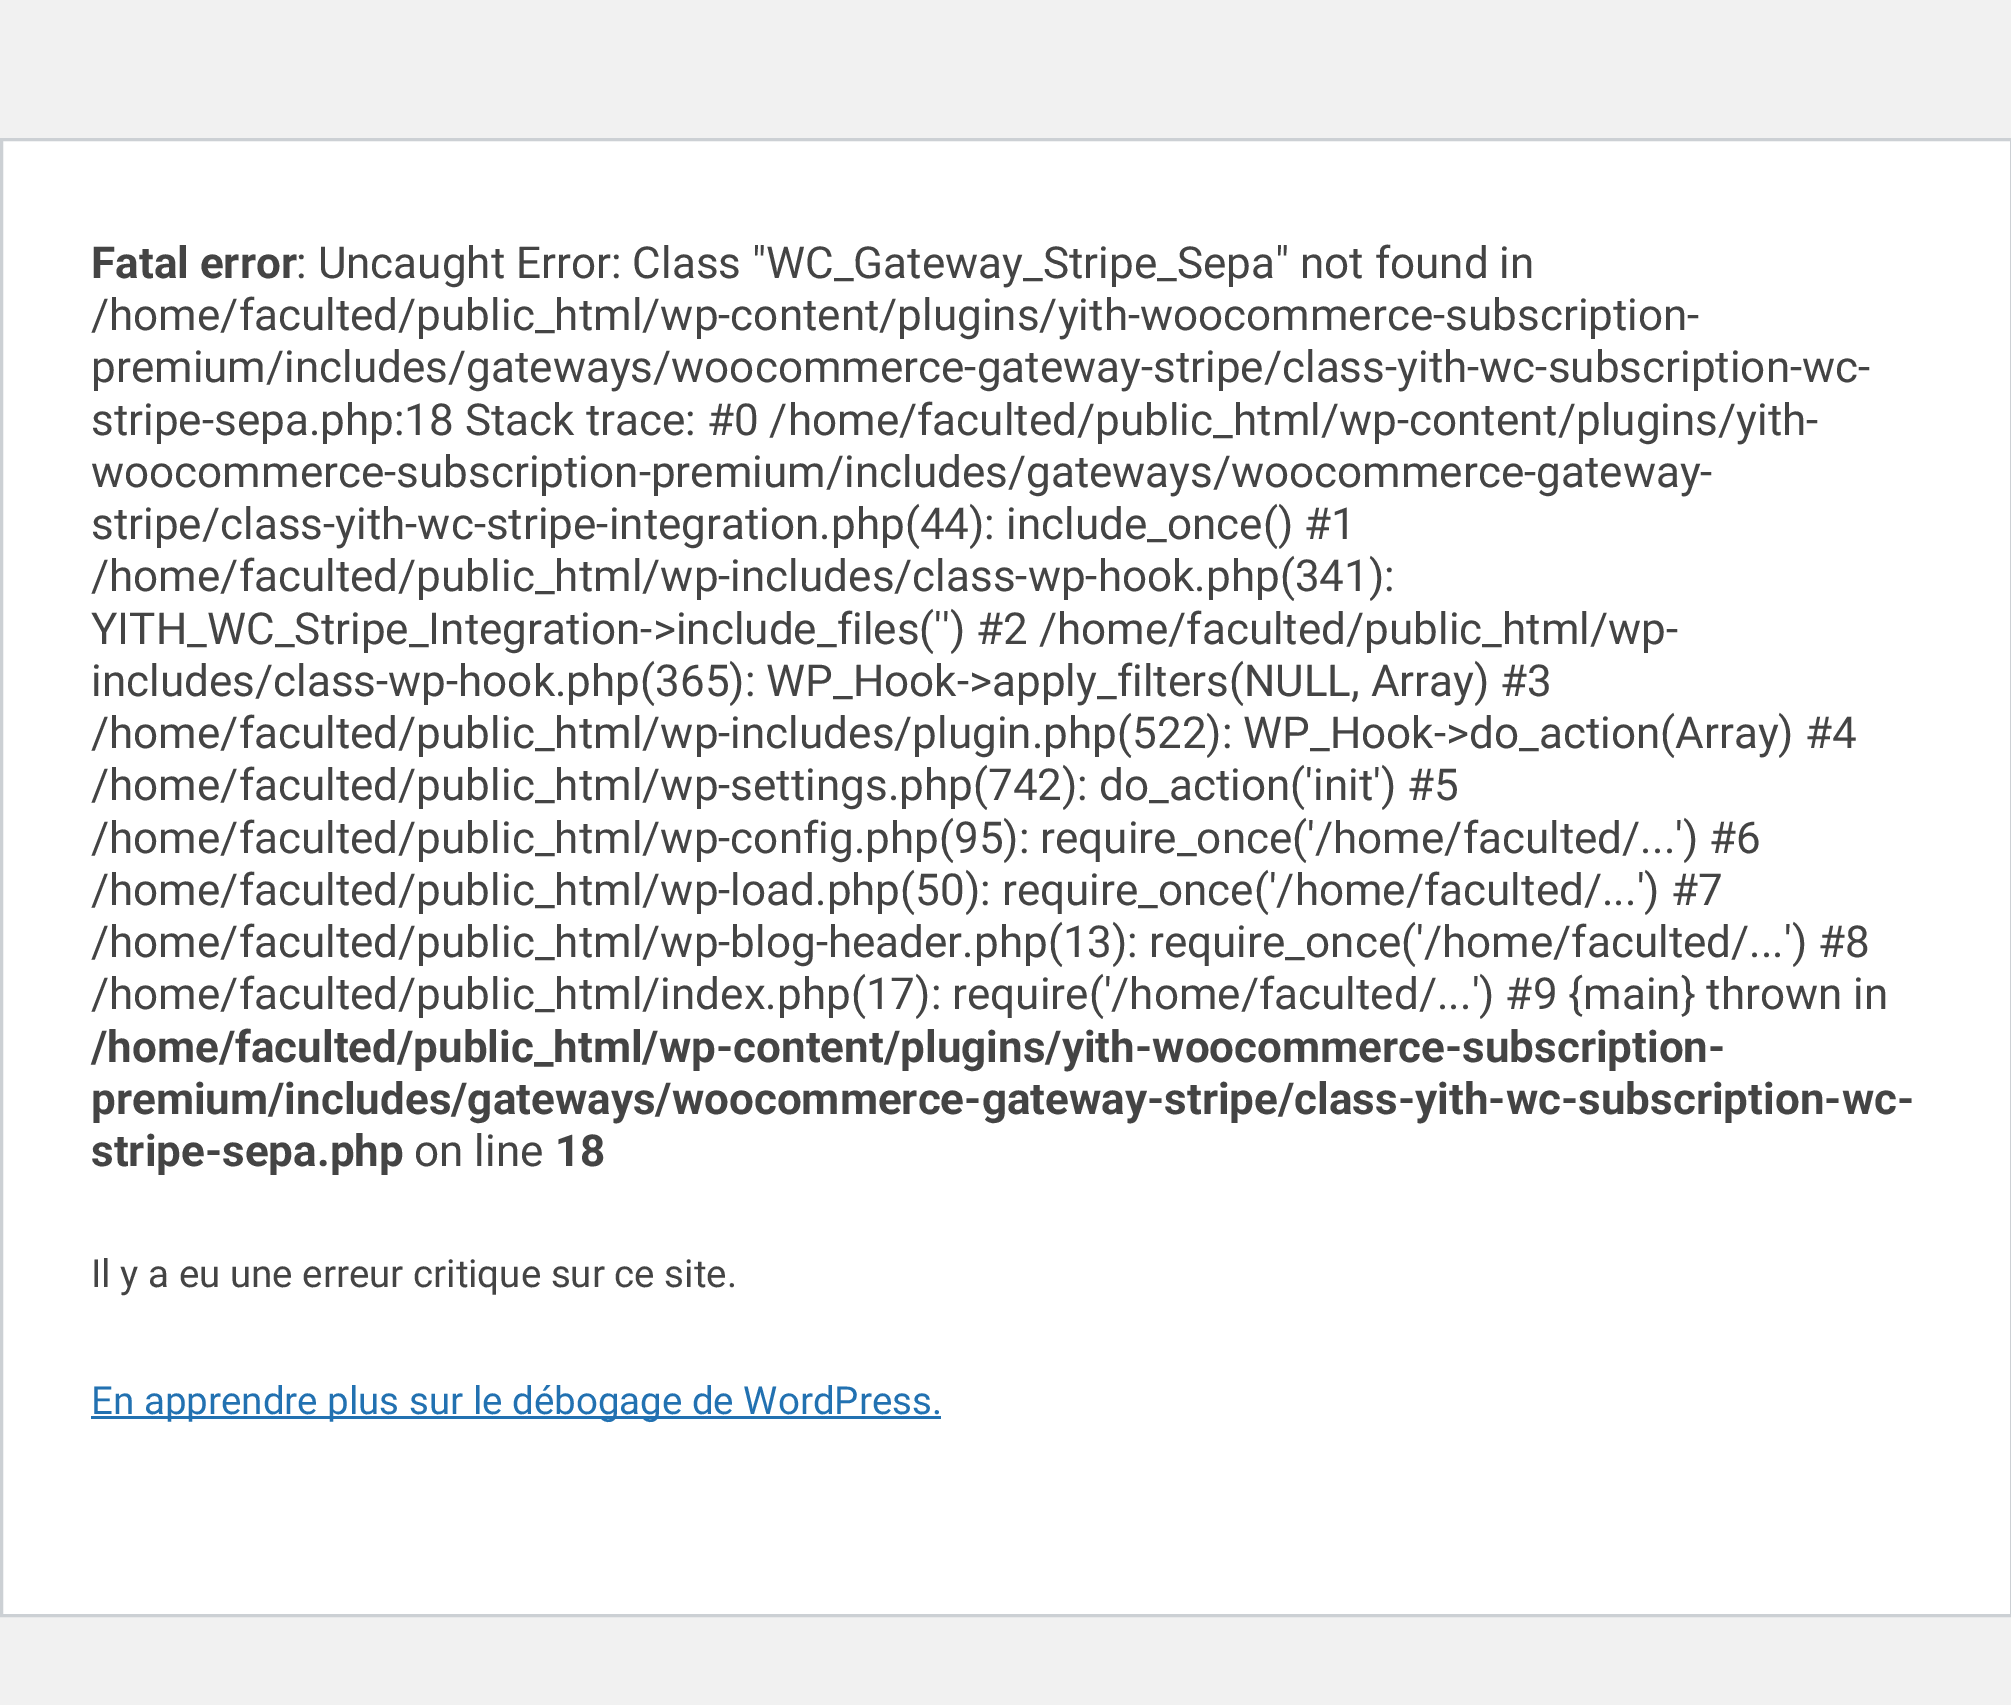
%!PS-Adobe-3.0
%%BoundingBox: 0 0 2011 1705
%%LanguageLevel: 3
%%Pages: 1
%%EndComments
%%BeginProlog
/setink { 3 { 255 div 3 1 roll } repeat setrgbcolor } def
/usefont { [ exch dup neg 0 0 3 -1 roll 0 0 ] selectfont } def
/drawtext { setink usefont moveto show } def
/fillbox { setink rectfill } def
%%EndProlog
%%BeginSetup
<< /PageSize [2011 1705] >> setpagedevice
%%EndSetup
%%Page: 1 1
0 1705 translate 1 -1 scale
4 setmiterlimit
0 0 2011 1705 241 241 241 fillbox
255 255 255 setink
1.5 139.5 moveto 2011.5 139.5 lineto 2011.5 1615.5 lineto 1.5 1615.5 lineto closepath gsave fill grestore
204 208 212 setink
3 setlinewidth
stroke
(Fatal error) 91 278 /Roboto-Bold 44 68 68 68 drawtext
(: Uncaught Error: Class "WC_Gateway_Stripe_Sepa" not found in) 296 278 /Roboto-Regular 44 68 68 68 drawtext
(/home/faculted/public_html/wp-content/plugins/yith-woocommerce-subscription-) 91 330 /Roboto-Regular 44 68 68 68 drawtext
(premium/includes/gateways/woocommerce-gateway-stripe/class-yith-wc-subscription-wc-) 91 382 /Roboto-Regular 44 68 68 68 drawtext
(stripe-sepa.php:18 Stack trace: #0 /home/faculted/public_html/wp-content/plugins/yith-) 91 435 /Roboto-Regular 44 68 68 68 drawtext
(woocommerce-subscription-premium/includes/gateways/woocommerce-gateway-) 91 487 /Roboto-Regular 44 68 68 68 drawtext
(stripe/class-yith-wc-stripe-integration.php\(44\): include_once\(\) #1) 91 539 /Roboto-Regular 44 68 68 68 drawtext
(/home/faculted/public_html/wp-includes/class-wp-hook.php\(341\):) 91 591 /Roboto-Regular 44 68 68 68 drawtext
(YITH_WC_Stripe_Integration->include_files\(''\) #2 /home/faculted/public_html/wp-) 91 644 /Roboto-Regular 44 68 68 68 drawtext
(includes/class-wp-hook.php\(365\): WP_Hook->apply_filters\(NULL, Array\) #3) 91 696 /Roboto-Regular 44 68 68 68 drawtext
(/home/faculted/public_html/wp-includes/plugin.php\(522\): WP_Hook->do_action\(Array\) #4) 91 748 /Roboto-Regular 44 68 68 68 drawtext
(/home/faculted/public_html/wp-settings.php\(742\): do_action\('init'\) #5) 91 800 /Roboto-Regular 44 68 68 68 drawtext
(/home/faculted/public_html/wp-config.php\(95\): require_once\('/home/faculted/...'\) #6) 91 853 /Roboto-Regular 44 68 68 68 drawtext
(/home/faculted/public_html/wp-load.php\(50\): require_once\('/home/faculted/...'\) #7) 91 905 /Roboto-Regular 44 68 68 68 drawtext
(/home/faculted/public_html/wp-blog-header.php\(13\): require_once\('/home/faculted/...'\) #8) 91 957 /Roboto-Regular 44 68 68 68 drawtext
(/home/faculted/public_html/index.php\(17\): require\('/home/faculted/...'\) #9 {main} thrown in) 91 1009 /Roboto-Regular 44 68 68 68 drawtext
(/home/faculted/public_html/wp-content/plugins/yith-woocommerce-subscription-) 91 1062 /Roboto-Bold 44 68 68 68 drawtext
(premium/includes/gateways/woocommerce-gateway-stripe/class-yith-wc-subscription-wc-) 91 1114 /Roboto-Bold 44 68 68 68 drawtext
(stripe-sepa.php) 91 1166 /Roboto-Bold 44 68 68 68 drawtext
(on line) 414 1166 /Roboto-Regular 44 68 68 68 drawtext
(18) 555 1166 /Roboto-Bold 44 68 68 68 drawtext
(Il y a eu une erreur critique sur ce site.) 91 1287 /Roboto-Regular 38.5 68 68 68 drawtext
91 1416 850 3 34 113 177 fillbox
(En apprendre plus sur le débogage de WordPress.) 91 1414 /Roboto-Regular 38.5 34 113 177 drawtext
showpage
%%EOF
